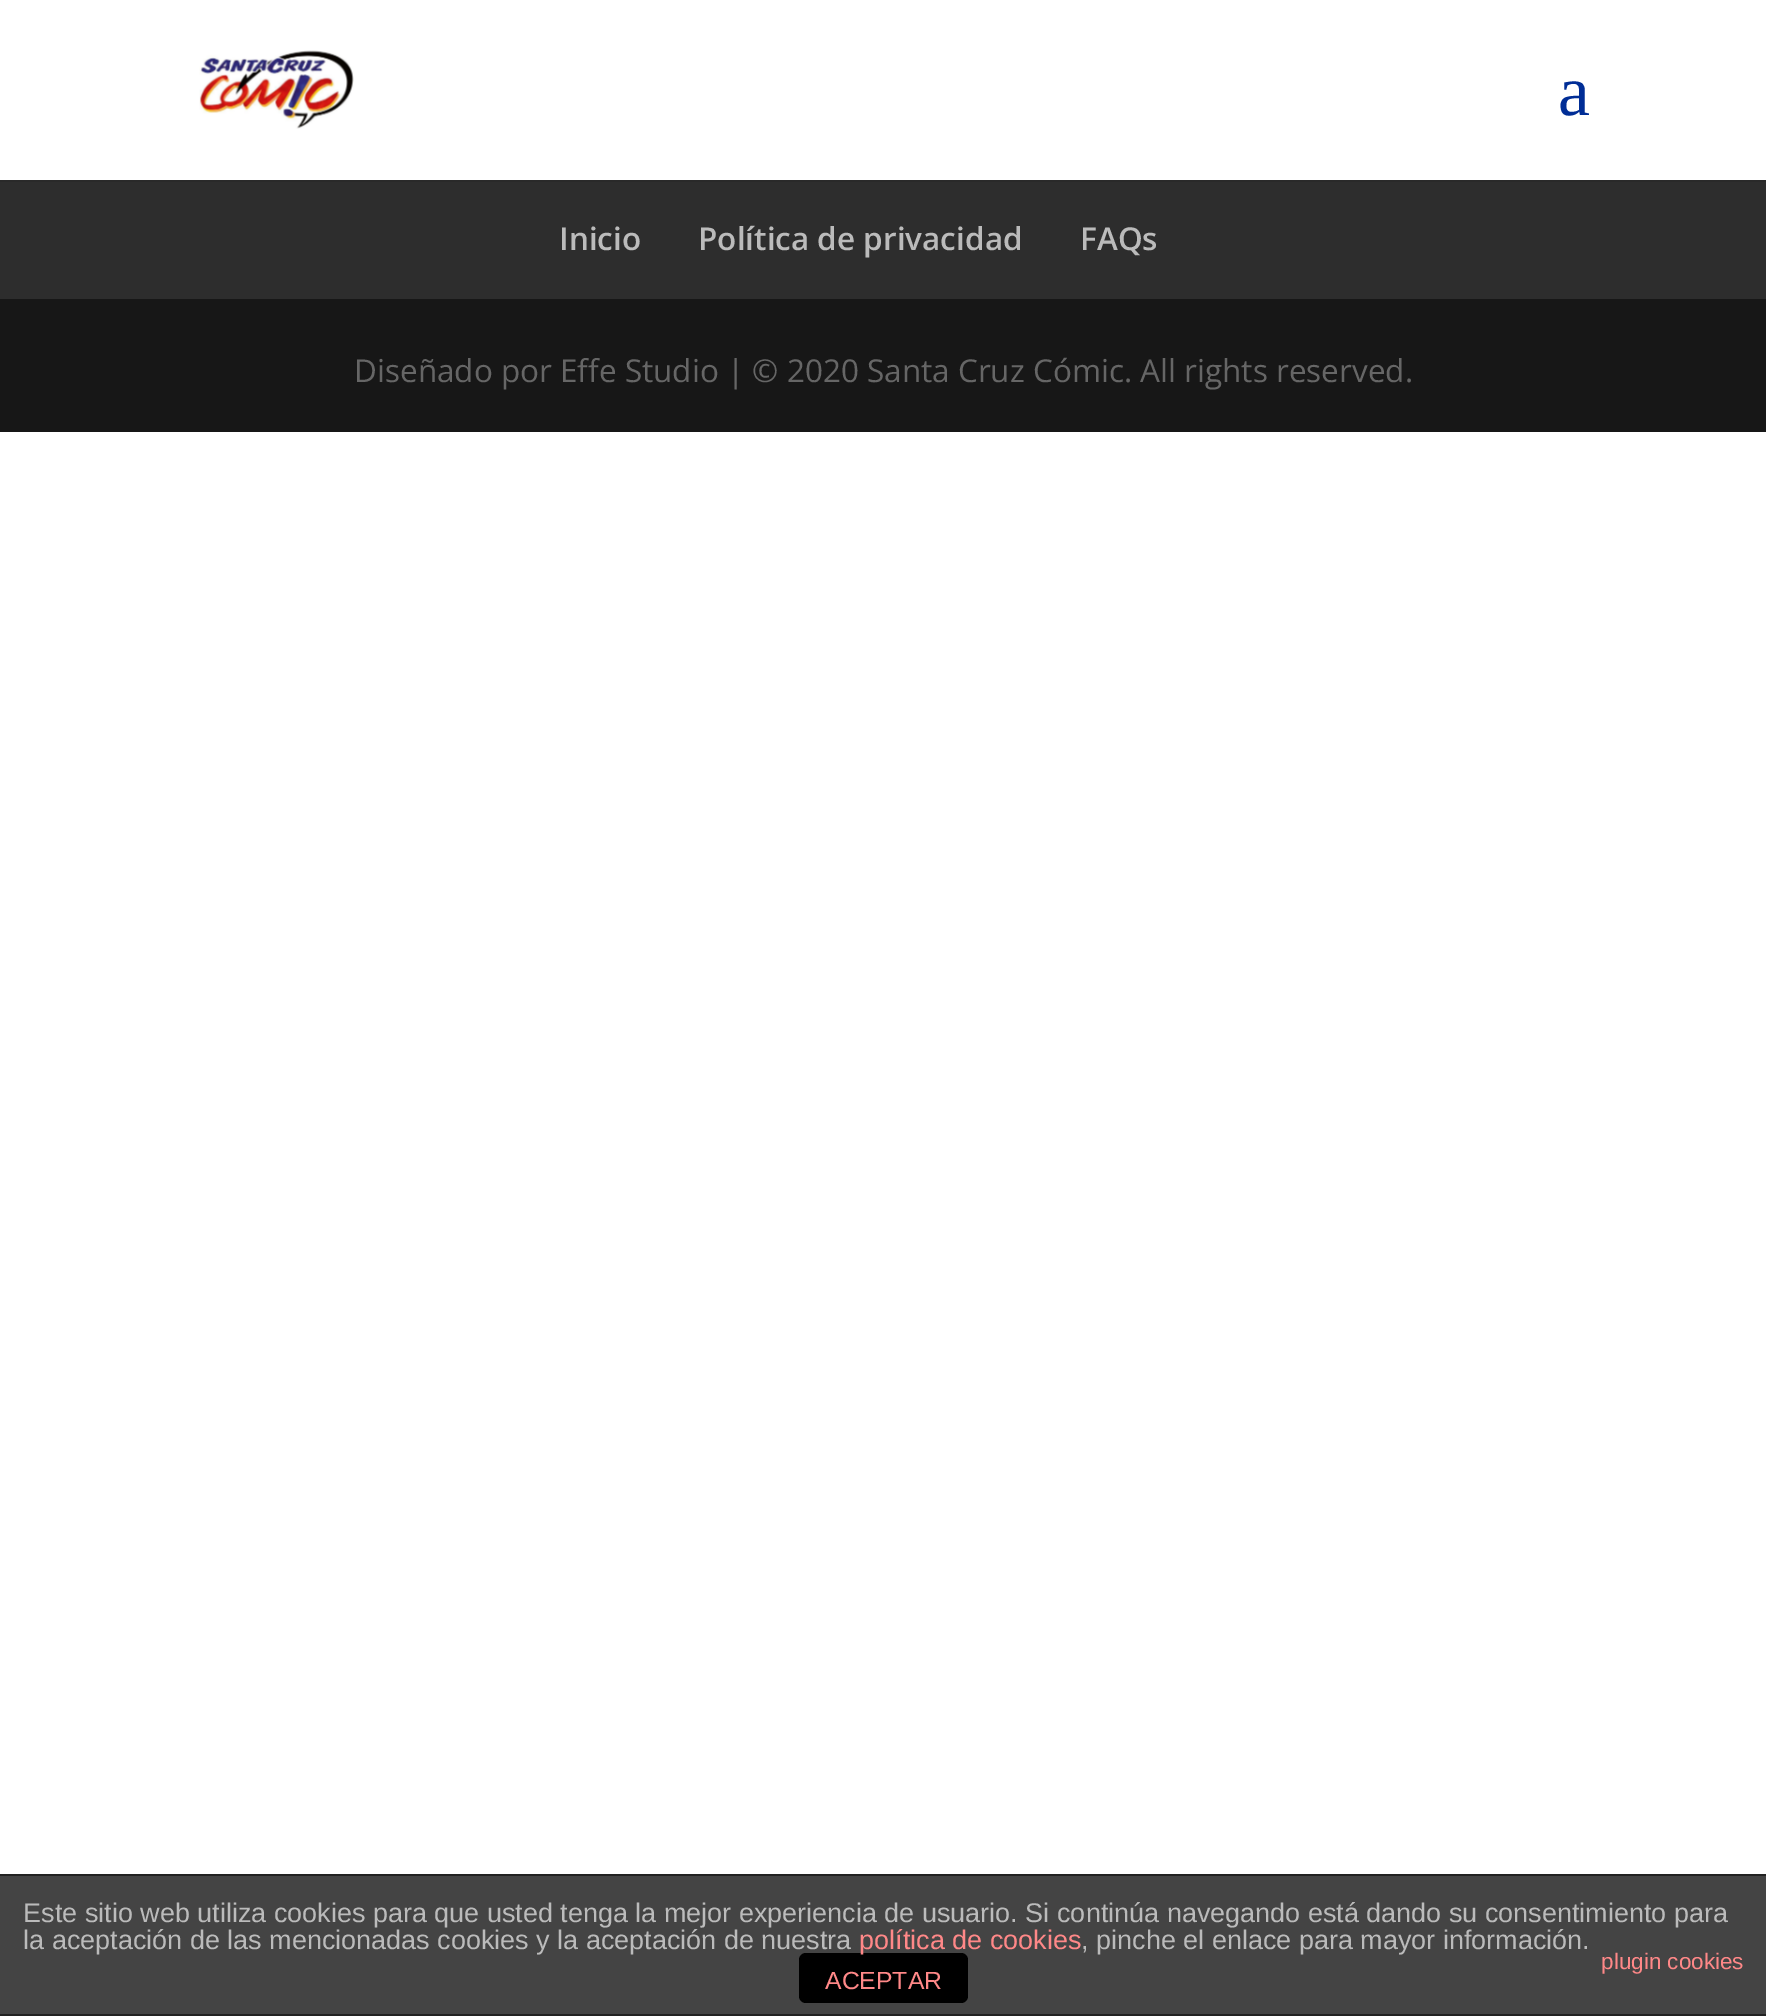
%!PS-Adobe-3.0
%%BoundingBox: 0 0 1766 2016
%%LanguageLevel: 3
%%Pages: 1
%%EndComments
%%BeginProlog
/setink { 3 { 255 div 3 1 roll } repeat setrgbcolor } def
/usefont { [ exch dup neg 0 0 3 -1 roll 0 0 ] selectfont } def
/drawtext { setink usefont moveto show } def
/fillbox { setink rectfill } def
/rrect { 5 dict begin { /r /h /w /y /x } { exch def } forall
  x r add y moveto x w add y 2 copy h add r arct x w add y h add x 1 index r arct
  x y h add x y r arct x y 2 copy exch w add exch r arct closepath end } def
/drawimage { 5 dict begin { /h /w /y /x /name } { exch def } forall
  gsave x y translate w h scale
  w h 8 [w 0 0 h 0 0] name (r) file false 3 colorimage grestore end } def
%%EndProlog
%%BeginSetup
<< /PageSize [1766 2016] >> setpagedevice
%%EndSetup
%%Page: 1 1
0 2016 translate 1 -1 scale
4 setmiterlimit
0 0 1766 2016 255 255 255 fillbox
0 180 1766 2 41 41 41 fillbox
(assets/img1.rgb) 199 50 155 79 drawimage
(a) 1558 115 /LiberationSerif-Regular 72 0 45 150 drawtext
0 182 1766 117 45 45 45 fillbox
(Inicio) 559 250 /OpenSans-SemiBold 31.5 187 187 187 drawtext
(Política de privacidad) 698 250 /OpenSans-SemiBold 31.5 187 187 187 drawtext
(FAQs) 1080 250 /OpenSans-SemiBold 31.5 187 187 187 drawtext
0 299 1766 133 23 23 23 fillbox
(Diseñado por Effe Studio | © 2020 Santa Cruz Cómic. All rights reserved.) 354 382 /OpenSans-Regular 31.5 102 102 102 drawtext
0 1876 1766 138 68 68 68 fillbox
0 1874 1766 2 34 34 34 fillbox
0 2014 1766 2 34 34 34 fillbox
(Este sitio web utiliza cookies para que usted tenga la mejor experiencia de usuario. Si continúa navegando está dando su consentimiento para) 23 1922 /LiberationSans-Regular 27 187 187 187 drawtext
0 0 0 setink
799 1953 169 50 7 rrect fill
(la aceptación de las mencionadas cookies y la aceptación de nuestra) 23 1949 /LiberationSans-Regular 27 187 187 187 drawtext
(política de cookies) 859 1949 /LiberationSans-Regular 27 255 136 136 drawtext
(, pinche el enlace para mayor información.) 1081 1949 /LiberationSans-Regular 27 187 187 187 drawtext
(plugin cookies) 1601 1969 /LiberationSans-Regular 22.5 255 136 136 drawtext
(ACEPTAR) 825 1989 /LiberationSans-Regular 24.75 255 136 136 drawtext
showpage
%%EOF
